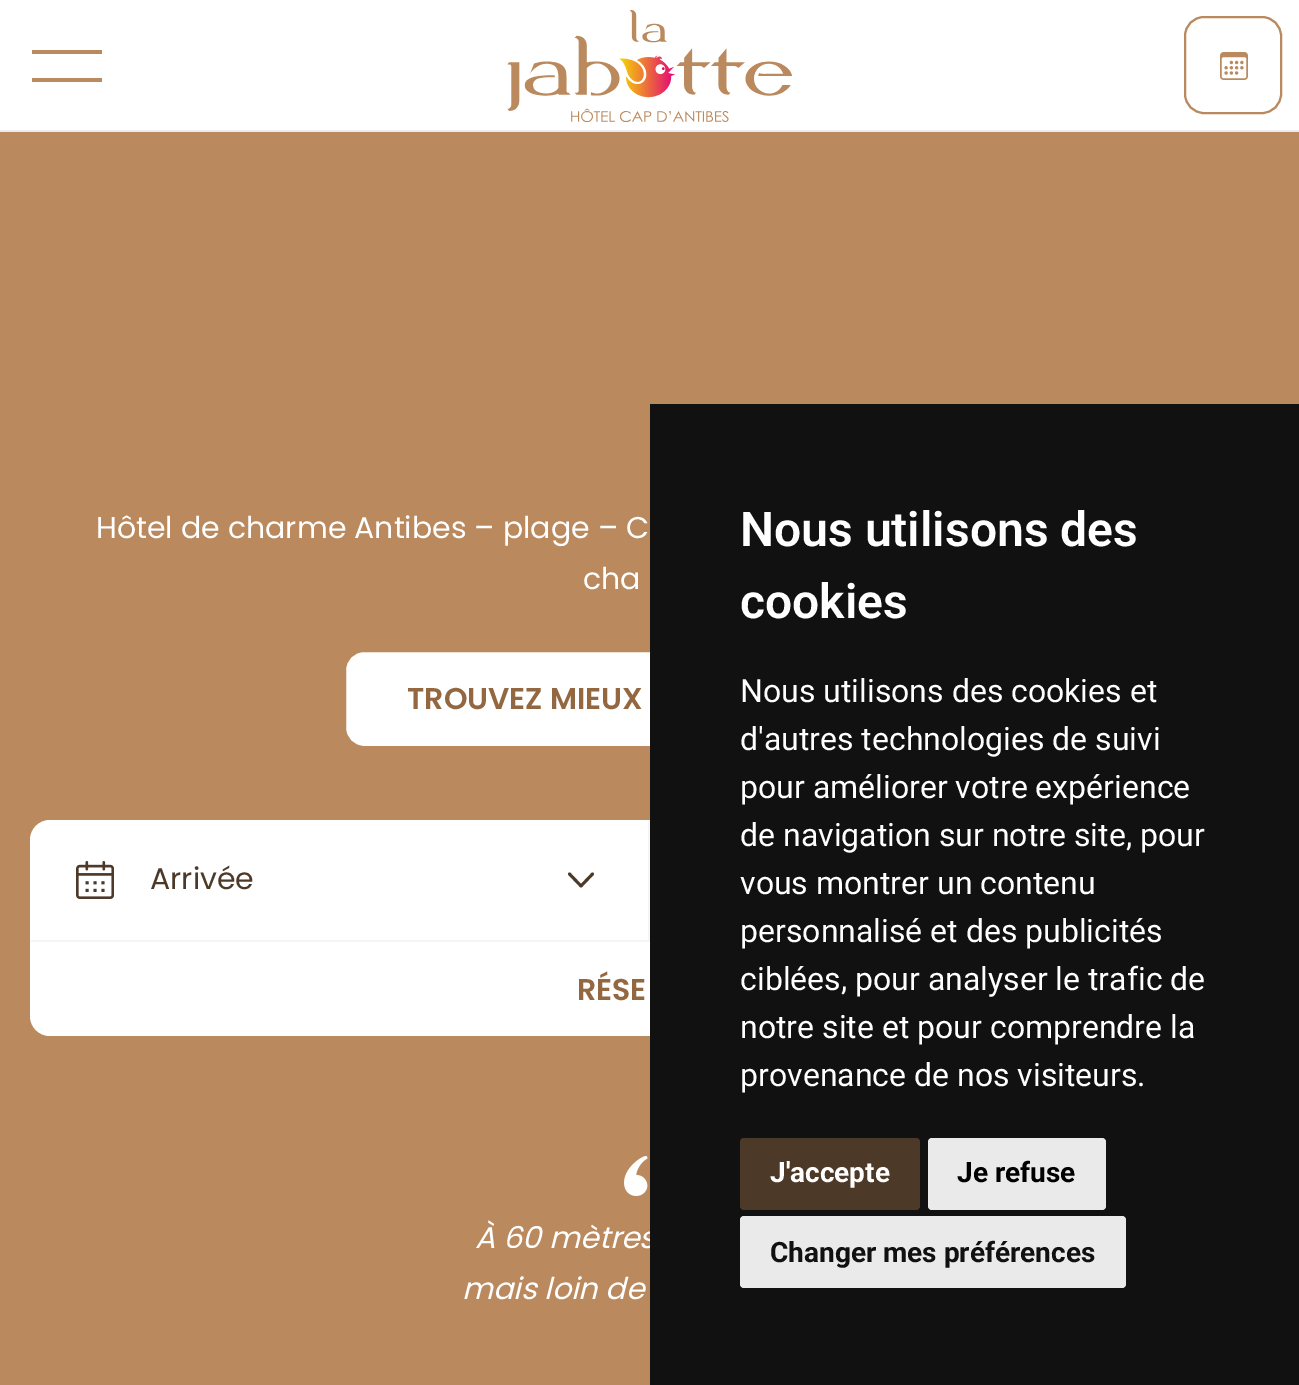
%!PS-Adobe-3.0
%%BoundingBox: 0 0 1299 1385
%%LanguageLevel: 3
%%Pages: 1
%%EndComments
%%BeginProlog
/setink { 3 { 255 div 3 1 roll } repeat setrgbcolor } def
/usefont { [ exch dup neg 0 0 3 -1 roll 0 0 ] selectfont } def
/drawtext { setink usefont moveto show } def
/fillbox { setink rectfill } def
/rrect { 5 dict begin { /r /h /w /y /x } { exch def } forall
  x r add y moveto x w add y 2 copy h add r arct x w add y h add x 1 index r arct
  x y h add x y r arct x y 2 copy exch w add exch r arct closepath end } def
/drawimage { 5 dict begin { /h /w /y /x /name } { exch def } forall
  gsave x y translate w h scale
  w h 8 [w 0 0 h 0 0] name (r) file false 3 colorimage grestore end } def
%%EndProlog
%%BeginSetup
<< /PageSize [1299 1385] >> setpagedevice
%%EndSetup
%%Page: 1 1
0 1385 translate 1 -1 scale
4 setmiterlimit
0 0 1299 1385 255 255 255 fillbox
0 130 1299 2 236 236 236 fillbox
32 50 70 4 186 138 94 fillbox
32 78 70 4 186 138 94 fillbox
(assets/img1.rgb) 507 10 285 112 drawimage
2 setlinewidth
1185 17 96 96 19 rrect stroke
(assets/img2.rgb) 1220 52 28 28 drawimage
0 132 1299 1253 186 138 94 fillbox
(Hôtel de charme Antibes – plage – C) 96 538 /Poppins-Regular 30 255 255 255 drawtext
(cha) 583 589 /Poppins-Regular 30 255 255 255 drawtext
345 651 610 96 19 rrect gsave fill grestore
186 138 94 setink
stroke
(TROUVEZ MIEUX) 407 709 /Poppins-SemiBold 30 147 103 63 drawtext
(assets/img3.rgb) 624 1156 24 40 drawimage
(À 60 mètres) 475 1248 /Poppins-Italic 30 255 255 255 drawtext
(mais loin de) 462 1299 /Poppins-Italic 30 255 255 255 drawtext
30 820 1240 216 20 rrect fill
648 820 2 120 245 245 245 fillbox
(assets/img4.rgb) 76 861 38 38 drawimage
(Arrivée) 150 889 /Poppins-Regular 30 77 57 39 drawtext
2.9 setlinewidth
1 setlinecap
1 setlinejoin
569.5 874 moveto 581 886 lineto 592.5 874 lineto stroke
30 940 620 2 245 245 245 fillbox
(RÉSE) 577 1000 /Poppins-SemiBold 30 147 103 63 drawtext
650 404 649 981 17 17 17 fillbox
(Nous utilisons des) 740 546 /Roboto-SemiBold 48 255 255 255 drawtext
(cookies) 740 618 /Roboto-SemiBold 48 255 255 255 drawtext
(Nous utilisons des cookies et) 740 702 /Roboto-Regular 32 255 255 255 drawtext
(d'autres technologies de suivi) 740 750 /Roboto-Regular 32 255 255 255 drawtext
(pour améliorer votre expérience) 740 798 /Roboto-Regular 32 255 255 255 drawtext
(de navigation sur notre site, pour) 740 846 /Roboto-Regular 32 255 255 255 drawtext
(vous montrer un contenu) 740 894 /Roboto-Regular 32 255 255 255 drawtext
(personnalisé et des publicités) 740 942 /Roboto-Regular 32 255 255 255 drawtext
(ciblées, pour analyser le trafic de) 740 990 /Roboto-Regular 32 255 255 255 drawtext
(notre site et pour comprendre la) 740 1038 /Roboto-Regular 32 255 255 255 drawtext
(provenance de nos visiteurs.) 740 1086 /Roboto-Regular 32 255 255 255 drawtext
77 57 39 setink
740 1138 180 72 4 rrect fill
(J'accepte) 770 1182 /Roboto-Bold 28 255 255 255 drawtext
234 234 234 setink
928 1138 178 72 4 rrect fill
(Je refuse) 957 1182 /Roboto-Bold 28 0 0 0 drawtext
234 234 234 setink
740 1216 386 72 4 rrect fill
(Changer mes préférences) 770 1262 /Roboto-Bold 28 17 17 17 drawtext
showpage
%%EOF
